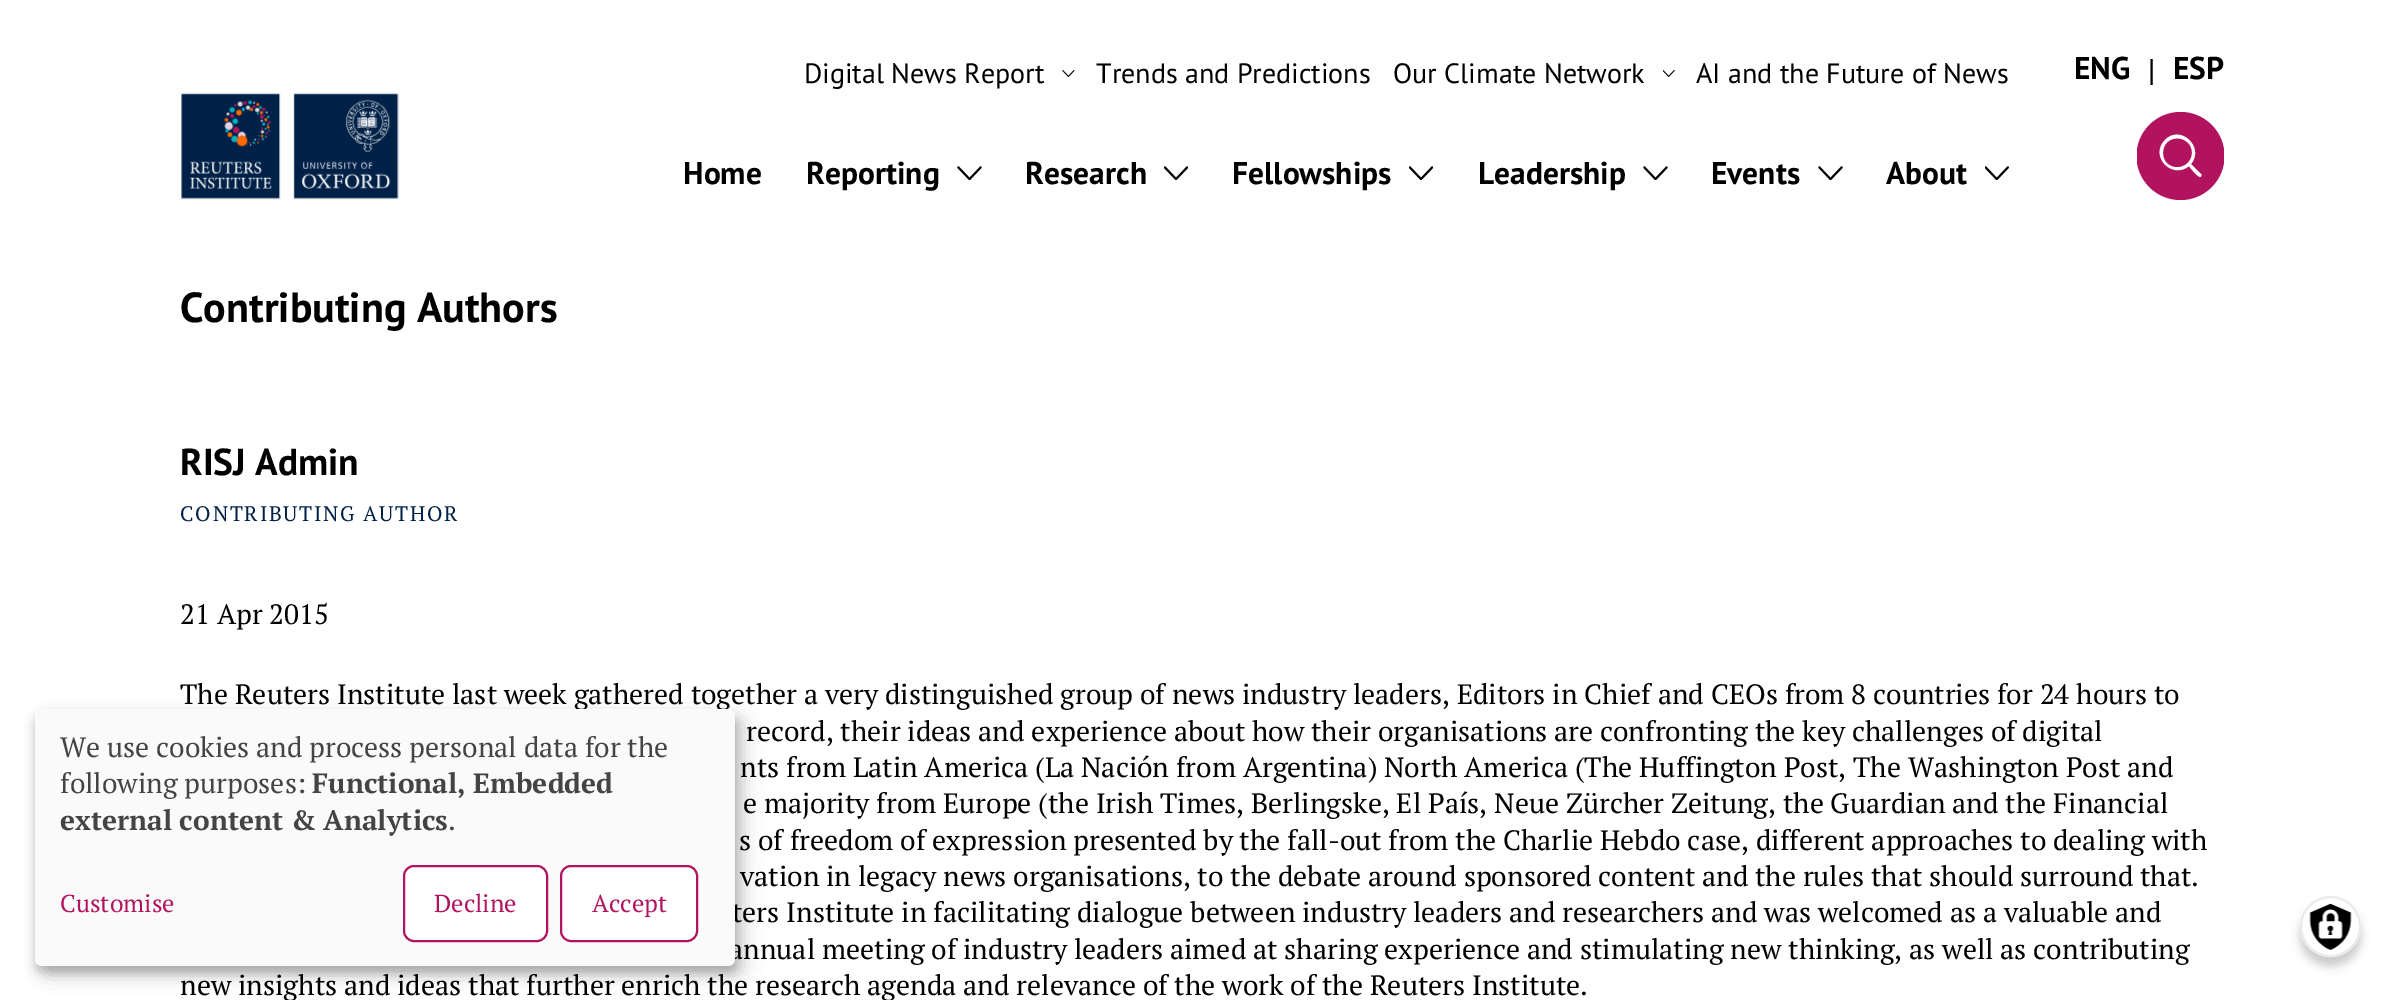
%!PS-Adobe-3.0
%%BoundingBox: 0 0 2404 1000
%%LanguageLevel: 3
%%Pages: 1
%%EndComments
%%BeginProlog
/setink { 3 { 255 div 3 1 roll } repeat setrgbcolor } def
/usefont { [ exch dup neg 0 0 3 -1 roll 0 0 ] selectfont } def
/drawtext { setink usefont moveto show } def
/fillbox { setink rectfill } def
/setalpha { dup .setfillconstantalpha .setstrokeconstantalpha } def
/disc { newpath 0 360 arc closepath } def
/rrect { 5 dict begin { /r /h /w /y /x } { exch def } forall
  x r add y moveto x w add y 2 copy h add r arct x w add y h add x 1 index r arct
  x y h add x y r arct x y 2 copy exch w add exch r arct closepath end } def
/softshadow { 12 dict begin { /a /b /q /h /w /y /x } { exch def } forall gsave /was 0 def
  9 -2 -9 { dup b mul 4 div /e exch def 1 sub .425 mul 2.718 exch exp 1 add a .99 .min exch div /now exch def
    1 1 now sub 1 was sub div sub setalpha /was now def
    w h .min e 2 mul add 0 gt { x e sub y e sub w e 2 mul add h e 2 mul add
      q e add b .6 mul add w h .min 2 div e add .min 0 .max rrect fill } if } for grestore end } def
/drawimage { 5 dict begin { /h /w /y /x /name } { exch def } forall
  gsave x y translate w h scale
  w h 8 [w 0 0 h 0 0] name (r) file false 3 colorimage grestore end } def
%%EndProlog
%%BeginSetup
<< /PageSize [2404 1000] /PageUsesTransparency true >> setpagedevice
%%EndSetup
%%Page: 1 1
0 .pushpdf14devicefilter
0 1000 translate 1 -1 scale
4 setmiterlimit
0 0 2404 1000 255 255 255 fillbox
(assets/img1.rgb) 180 93 220 107 drawimage
(Digital News Report) 804 83 /PTSans-Regular 28 0 0 0 drawtext
(assets/img2.rgb) 1062 70 13 7 drawimage
(Trends and Predictions) 1096 83 /PTSans-Regular 28 0 0 0 drawtext
(Our Climate Network) 1393 83 /PTSans-Regular 28 0 0 0 drawtext
(assets/img3.rgb) 1663 70 12 7 drawimage
(AI and the Future of News) 1696 83 /PTSans-Regular 28 0 0 0 drawtext
(Home) 683 184 /PTSans-Bold 31.5 0 0 0 drawtext
(Reporting) 806 184 /PTSans-Bold 31.5 0 0 0 drawtext
(assets/img4.rgb) 957 166 25 14 drawimage
(Research) 1025 184 /PTSans-Bold 31.5 0 0 0 drawtext
(assets/img5.rgb) 1164 166 24 14 drawimage
(Fellowships) 1232 184 /PTSans-Bold 31.5 0 0 0 drawtext
(assets/img5.rgb) 1409 166 24 14 drawimage
(Leadership) 1478 184 /PTSans-Bold 31.5 0 0 0 drawtext
(assets/img4.rgb) 1643 166 25 14 drawimage
(Events) 1711 184 /PTSans-Bold 31.5 0 0 0 drawtext
(assets/img4.rgb) 1818 166 25 14 drawimage
(About) 1886 184 /PTSans-Bold 31.5 0 0 0 drawtext
(assets/img6.rgb) 1985 166 24 14 drawimage
(ENG) 2074 79 /PTSans-Bold 31.5 0 0 0 drawtext
(|) 2148 81 /PTSerif-Bold 31.5 0 0 0 drawtext
(ESP) 2173 79 /PTSans-Bold 31.5 0 0 0 drawtext
gsave
2137 112 87 88 rectclip
178 19 95 setink
2180.5 156 44 disc fill
grestore
255 255 255 setink
2201 174 moveto 2191 164 lineto 2205 147 2180 124 2165 140 curveto 2149 156 2172 180 2189 166 curveto 2190 168 2198 177 2200 177 curveto 2201 177 2202 175 2201 174 curveto closepath 2163 153 moveto 2163 133 2192 134 2192 153 curveto 2191 172 2163 172 2163 153 curveto closepath fill
(Contributing Authors) 180 322 /PTSans-Bold 42 0 0 0 drawtext
(RISJ Admin) 180 475 /PTSans-Bold 37.5 0 0 0 drawtext
/PTSerif-Regular 21 usefont
0 33 71 setink
180 521 moveto 1.75 0 (CONTRIBUTING AUTHOR) ashow
(21 Apr 2015) 180 624 /PTSerif-Regular 28 0 0 0 drawtext
(The Reuters Institute last week gathered together a very distinguished group of news industry leaders, Editors in Chief and CEOs from 8 countries for 24 hours to) 180 704 /PTSerif-Regular 28 0 0 0 drawtext
(record, their ideas and experience about how their organisations are confronting the key challenges of digital) 746 741 /PTSerif-Regular 28 0 0 0 drawtext
(nts from Latin America \(La Nación from Argentina\) North America \(The Huffington Post, The Washington Post and) 740 777 /PTSerif-Regular 28 0 0 0 drawtext
(e majority from Europe \(the Irish Times, Berlingske, El País, Neue Zürcher Zeitung, the Guardian and the Financial) 743 813 /PTSerif-Regular 28 0 0 0 drawtext
(s of freedom of expression presented by the fall-out from the Charlie Hebdo case, different approaches to dealing with) 739 850 /PTSerif-Regular 28 0 0 0 drawtext
(vation in legacy news organisations, to the debate around sponsored content and the rules that should surround that.) 740 886 /PTSerif-Regular 28 0 0 0 drawtext
(ters Institute in facilitating dialogue between industry leaders and researchers and was welcomed as a valuable and) 732 922 /PTSerif-Regular 28 0 0 0 drawtext
(annual meeting of industry leaders aimed at sharing experience and stimulating new thinking, as well as contributing) 729 959 /PTSerif-Regular 28 0 0 0 drawtext
(new insights and ideas that further enrich the research agenda and relevance of the work of the Reuters Institute.) 180 995 /PTSerif-Regular 28 0 0 0 drawtext
44 718 700 257 7 9 0.19 softshadow
35 716 700 257 7 5 0.2 softshadow
250 250 250 setink
35 709 700 257 7 rrect fill
(We use cookies and process personal data for the) 60 757 /PTSerif-Regular 28 68 68 68 drawtext
(following purposes:) 60 793 /PTSerif-Regular 28 68 68 68 drawtext
(Functional, Embedded) 312 793 /PTSerif-Bold 28 68 68 68 drawtext
(external content & Analytics) 60 830 /PTSerif-Bold 28 68 68 68 drawtext
(.) 448 830 /PTSerif-Regular 28 68 68 68 drawtext
(Customise) 60 912 /PTSerif-Regular 24.5 178 19 95 drawtext
255 255 255 setink
404 866 143 75 10 rrect gsave fill grestore
178 19 95 setink
2 setlinewidth
stroke
(Decline) 434 912 /PTSerif-Regular 24.5 178 19 95 drawtext
255 255 255 setink
561 866 136 75 10 rrect gsave fill grestore
178 19 95 setink
stroke
(Accept) 592 912 /PTSerif-Regular 24.5 178 19 95 drawtext
0 0 0 setink
2300 905 61 61 30.5 4.5 0.2 softshadow
255 255 255 setink
2330.5 926.5 30.5 disc fill
(assets/img7.rgb) 2309 903 43 47 drawimage
234 234 234 setink
2330.5 926.5 29.5 disc stroke
.poppdf14devicefilter showpage
%%EOF
